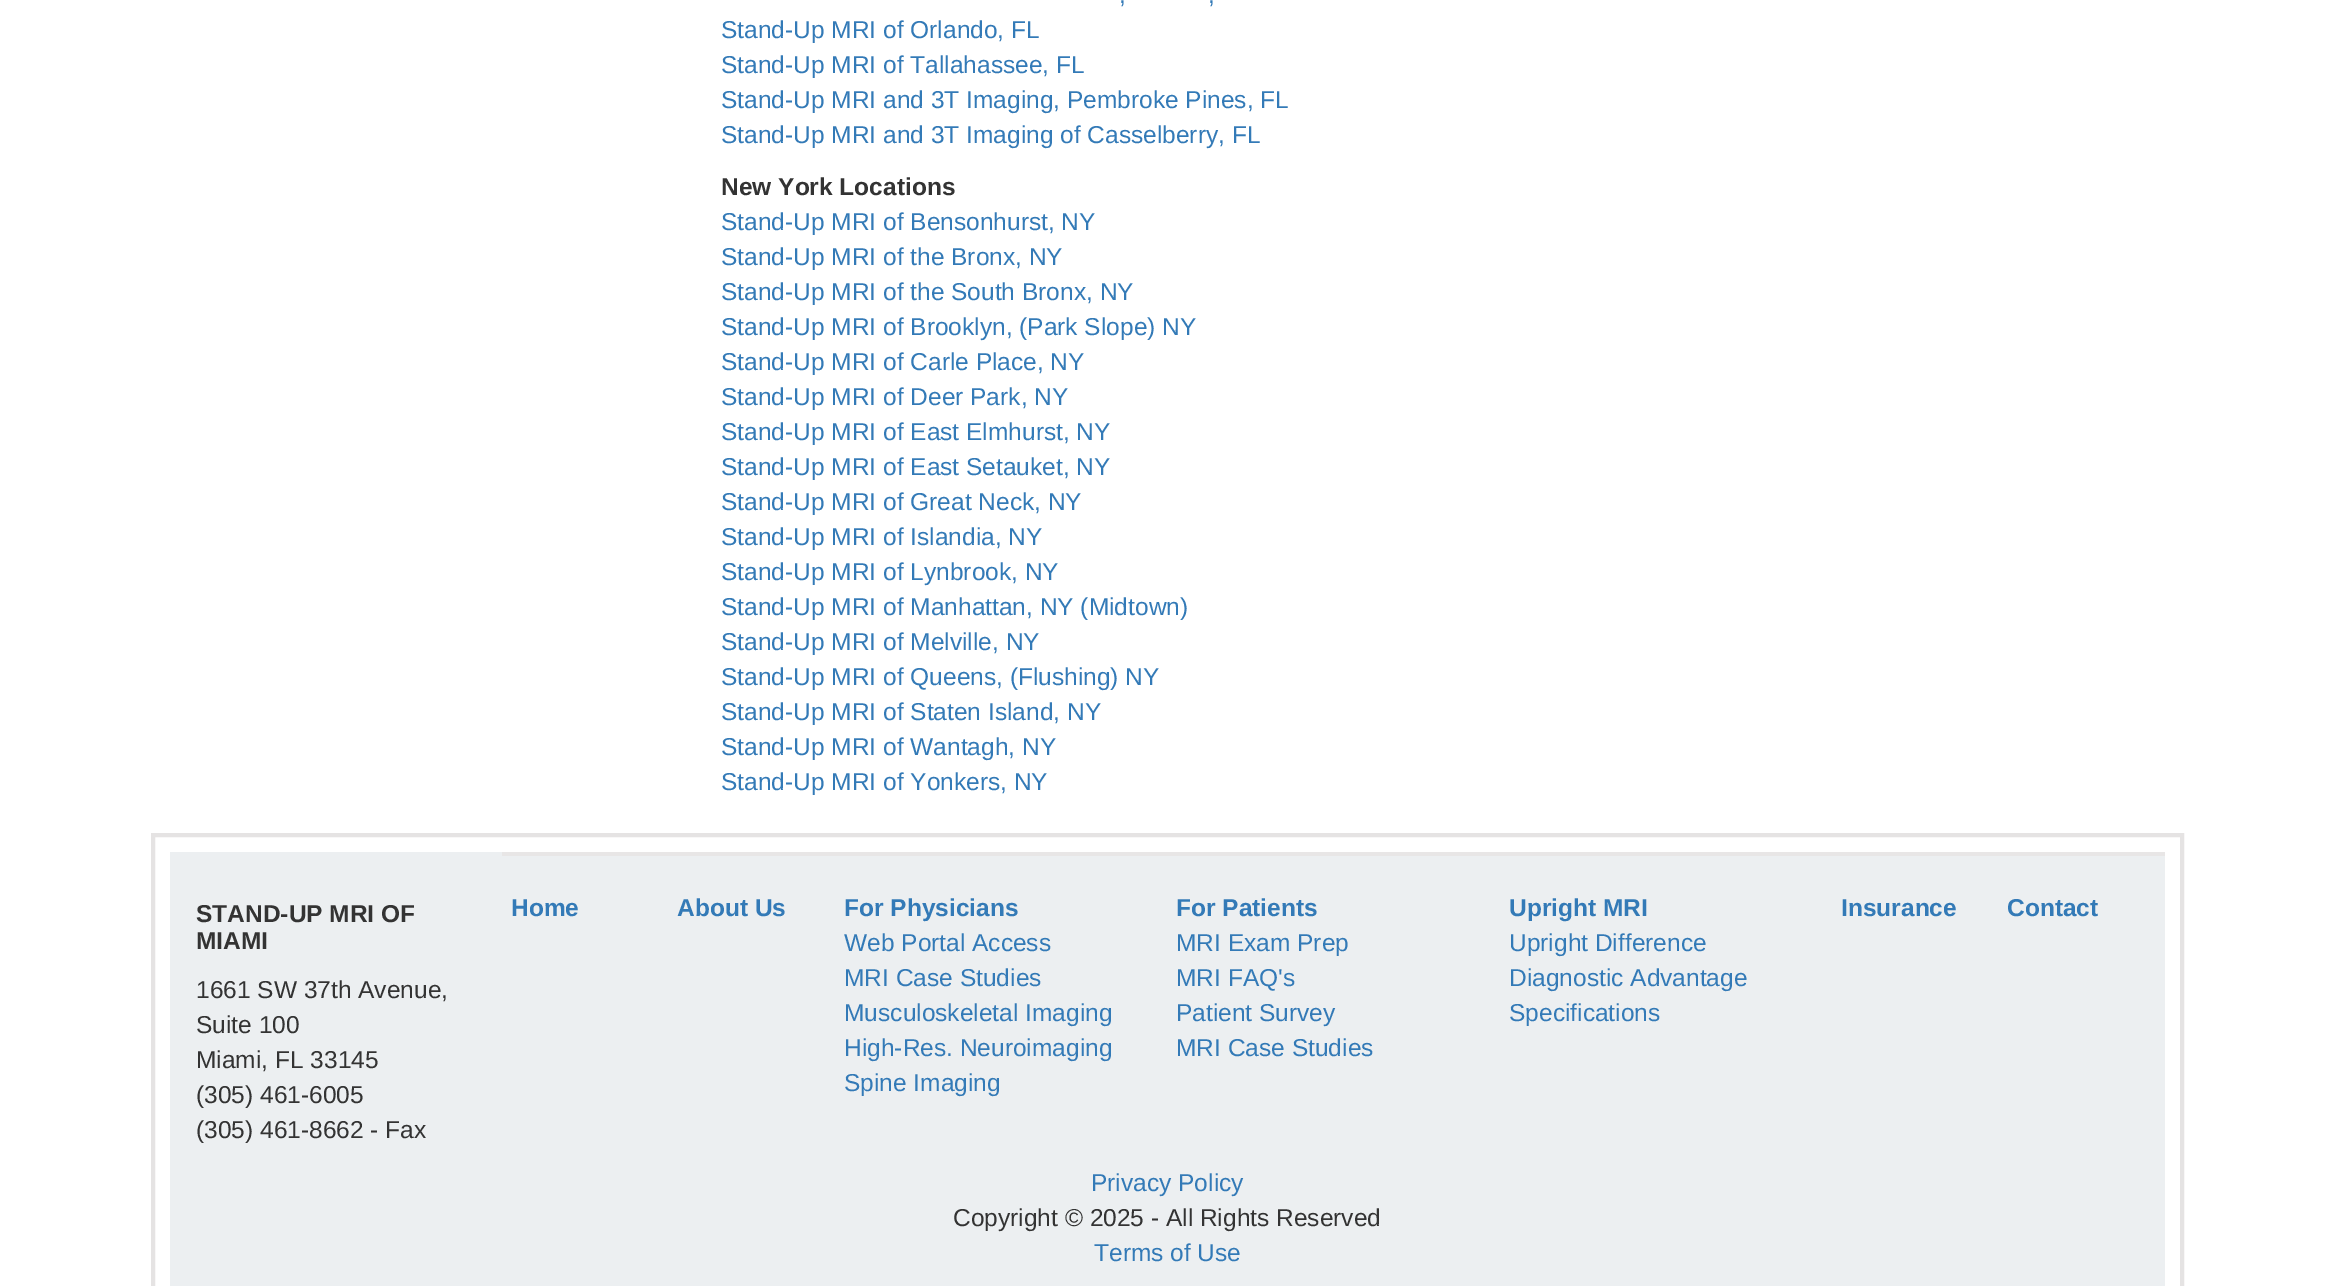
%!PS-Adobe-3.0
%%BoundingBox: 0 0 2334 1286
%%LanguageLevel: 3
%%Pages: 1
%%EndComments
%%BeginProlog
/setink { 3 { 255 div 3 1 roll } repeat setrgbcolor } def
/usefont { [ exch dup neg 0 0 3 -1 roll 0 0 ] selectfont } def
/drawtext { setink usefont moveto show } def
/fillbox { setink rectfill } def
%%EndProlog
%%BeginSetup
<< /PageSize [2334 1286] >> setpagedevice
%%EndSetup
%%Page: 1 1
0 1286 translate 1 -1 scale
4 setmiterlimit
0 0 2334 1286 255 255 255 fillbox
(,) 1119 3 /LiberationSans-Regular 24.5 51 122 183 drawtext
(,) 1208 3 /LiberationSans-Regular 24.5 51 122 183 drawtext
(Stand-Up MRI of Orlando, FL) 721 38 /LiberationSans-Regular 24.5 51 122 183 drawtext
(Stand-Up MRI of Tallahassee, FL) 721 73 /LiberationSans-Regular 24.5 51 122 183 drawtext
(Stand-Up MRI and 3T Imaging, Pembroke Pines, FL) 721 108 /LiberationSans-Regular 24.5 51 122 183 drawtext
(Stand-Up MRI and 3T Imaging of Casselberry, FL) 721 143 /LiberationSans-Regular 24.5 51 122 183 drawtext
(New York Locations) 721 195 /LiberationSans-Bold 24.5 51 51 51 drawtext
(Stand-Up MRI of Bensonhurst, NY) 721 230 /LiberationSans-Regular 24.5 51 122 183 drawtext
(Stand-Up MRI of the Bronx, NY) 721 265 /LiberationSans-Regular 24.5 51 122 183 drawtext
(Stand-Up MRI of the South Bronx, NY) 721 300 /LiberationSans-Regular 24.5 51 122 183 drawtext
(Stand-Up MRI of Brooklyn, \(Park Slope\) NY) 721 335 /LiberationSans-Regular 24.5 51 122 183 drawtext
(Stand-Up MRI of Carle Place, NY) 721 370 /LiberationSans-Regular 24.5 51 122 183 drawtext
(Stand-Up MRI of Deer Park, NY) 721 405 /LiberationSans-Regular 24.5 51 122 183 drawtext
(Stand-Up MRI of East Elmhurst, NY) 721 440 /LiberationSans-Regular 24.5 51 122 183 drawtext
(Stand-Up MRI of East Setauket, NY) 721 475 /LiberationSans-Regular 24.5 51 122 183 drawtext
(Stand-Up MRI of Great Neck, NY) 721 510 /LiberationSans-Regular 24.5 51 122 183 drawtext
(Stand-Up MRI of Islandia, NY) 721 545 /LiberationSans-Regular 24.5 51 122 183 drawtext
(Stand-Up MRI of Lynbrook, NY) 721 580 /LiberationSans-Regular 24.5 51 122 183 drawtext
(Stand-Up MRI of Manhattan, NY \(Midtown\)) 721 615 /LiberationSans-Regular 24.5 51 122 183 drawtext
(Stand-Up MRI of Melville, NY) 721 650 /LiberationSans-Regular 24.5 51 122 183 drawtext
(Stand-Up MRI of Queens, \(Flushing\) NY) 721 685 /LiberationSans-Regular 24.5 51 122 183 drawtext
(Stand-Up MRI of Staten Island, NY) 721 720 /LiberationSans-Regular 24.5 51 122 183 drawtext
(Stand-Up MRI of Wantagh, NY) 721 755 /LiberationSans-Regular 24.5 51 122 183 drawtext
(Stand-Up MRI of Yonkers, NY) 721 790 /LiberationSans-Regular 24.5 51 122 183 drawtext
170 852 1995 434 236 239 241 fillbox
229 227 227 setink
4 setlinewidth
153 835 2029 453 rectstroke
502 852 1663 4 232 230 230 fillbox
(STAND-UP MRI OF) 196 922 /LiberationSans-Bold 24.5 51 51 51 drawtext
(MIAMI) 196 949 /LiberationSans-Bold 24.5 51 51 51 drawtext
(1661 SW 37th Avenue,) 196 998 /LiberationSans-Regular 24.5 51 51 51 drawtext
(Suite 100) 196 1033 /LiberationSans-Regular 24.5 51 51 51 drawtext
(Miami, FL 33145) 196 1068 /LiberationSans-Regular 24.5 51 51 51 drawtext
(\(305\) 461-6005) 196 1103 /LiberationSans-Regular 24.5 51 51 51 drawtext
(\(305\) 461-8662 - Fax) 196 1138 /LiberationSans-Regular 24.5 51 51 51 drawtext
(Home) 511 916 /LiberationSans-Bold 24.5 51 122 183 drawtext
(About Us) 677 916 /LiberationSans-Bold 24.5 51 122 183 drawtext
(For Physicians) 844 916 /LiberationSans-Bold 24.5 51 122 183 drawtext
(Web Portal Access) 844 951 /LiberationSans-Regular 24.5 51 122 183 drawtext
(MRI Case Studies) 844 986 /LiberationSans-Regular 24.5 51 122 183 drawtext
(Musculoskeletal Imaging) 844 1021 /LiberationSans-Regular 24.5 51 122 183 drawtext
(High-Res. Neuroimaging) 844 1056 /LiberationSans-Regular 24.5 51 122 183 drawtext
(Spine Imaging) 844 1091 /LiberationSans-Regular 24.5 51 122 183 drawtext
(For Patients) 1176 916 /LiberationSans-Bold 24.5 51 122 183 drawtext
(MRI Exam Prep) 1176 951 /LiberationSans-Regular 24.5 51 122 183 drawtext
(MRI FAQ's) 1176 986 /LiberationSans-Regular 24.5 51 122 183 drawtext
(Patient Survey) 1176 1021 /LiberationSans-Regular 24.5 51 122 183 drawtext
(MRI Case Studies) 1176 1056 /LiberationSans-Regular 24.5 51 122 183 drawtext
(Upright MRI) 1509 916 /LiberationSans-Bold 24.5 51 122 183 drawtext
(Upright Difference) 1509 951 /LiberationSans-Regular 24.5 51 122 183 drawtext
(Diagnostic Advantage) 1509 986 /LiberationSans-Regular 24.5 51 122 183 drawtext
(Specifications) 1509 1021 /LiberationSans-Regular 24.5 51 122 183 drawtext
(Insurance) 1841 916 /LiberationSans-Bold 24.5 51 122 183 drawtext
(Contact) 2007 916 /LiberationSans-Bold 24.5 51 122 183 drawtext
(Privacy Policy) 1091 1191 /LiberationSans-Regular 24.5 51 122 183 drawtext
(Copyright © 2025 - All Rights Reserved) 953 1226 /LiberationSans-Regular 24.5 51 51 51 drawtext
(Terms of Use) 1094 1261 /LiberationSans-Regular 24.5 51 122 183 drawtext
showpage
%%EOF
